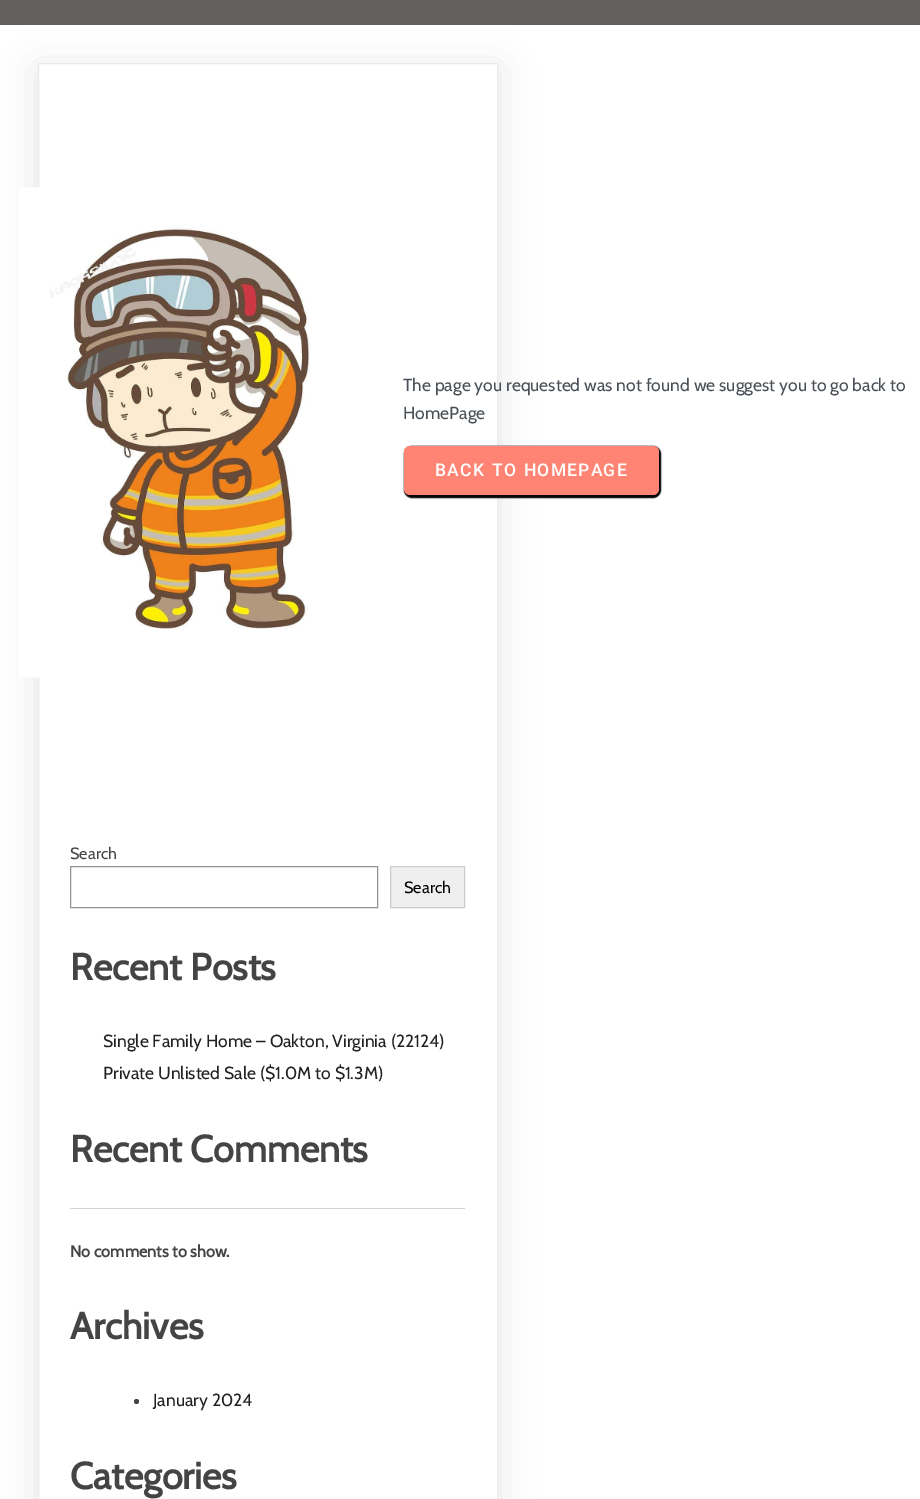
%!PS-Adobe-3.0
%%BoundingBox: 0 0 920 1499
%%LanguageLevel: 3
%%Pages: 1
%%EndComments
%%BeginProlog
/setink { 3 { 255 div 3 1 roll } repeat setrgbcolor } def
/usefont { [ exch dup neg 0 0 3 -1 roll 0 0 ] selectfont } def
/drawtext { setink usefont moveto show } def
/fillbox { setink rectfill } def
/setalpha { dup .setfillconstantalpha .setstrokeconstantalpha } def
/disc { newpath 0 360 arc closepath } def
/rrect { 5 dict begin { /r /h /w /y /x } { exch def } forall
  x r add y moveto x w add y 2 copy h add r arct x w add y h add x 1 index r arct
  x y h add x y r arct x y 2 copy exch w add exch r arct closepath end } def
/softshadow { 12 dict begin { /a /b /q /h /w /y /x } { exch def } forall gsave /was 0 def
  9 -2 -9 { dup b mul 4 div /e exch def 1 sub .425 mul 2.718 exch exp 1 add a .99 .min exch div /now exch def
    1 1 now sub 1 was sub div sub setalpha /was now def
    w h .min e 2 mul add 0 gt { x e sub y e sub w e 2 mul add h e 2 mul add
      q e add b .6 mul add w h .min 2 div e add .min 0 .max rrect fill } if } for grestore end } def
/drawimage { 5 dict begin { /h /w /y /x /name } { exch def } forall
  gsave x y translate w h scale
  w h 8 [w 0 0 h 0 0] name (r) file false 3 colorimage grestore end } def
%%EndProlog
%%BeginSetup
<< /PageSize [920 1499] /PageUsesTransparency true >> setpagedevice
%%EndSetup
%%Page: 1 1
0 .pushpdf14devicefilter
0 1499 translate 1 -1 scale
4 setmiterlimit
0 0 920 1499 255 255 255 fillbox
0 0 0 setink
38 69 460 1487 0 19 0.1 softshadow
0 0 920 25 98 95 95 fillbox
255 255 255 setink
38.5 63.5 moveto 497.5 63.5 lineto 497.5 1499.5 lineto 38.5 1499.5 lineto closepath gsave fill grestore
234 234 234 setink
stroke
(assets/img1.rgb) 19 187 291 491 drawimage
(The page you requested was not found we suggest you to go back to) 403 391 /Cabin-Regular 17.5 73 80 87 drawtext
(HomePage) 403 419 /Cabin-Regular 17.5 73 80 87 drawtext
0 0 0 setink
404 446 257 52 8 0.5 1 softshadow
255 132 116 setink
404 446 255 49 6 rrect fill
/Roboto-Medium 17.5 usefont
255 255 255 setink
435 476 moveto 1 0 32 1.25 0 (BACK TO HOMEPAGE) awidthshow
(Search) 70 859 /Cabin-Regular 16.25 68 68 68 drawtext
148 148 148 setink
70.5 866.5 307 41 rectstroke
239 239 239 setink
390.5 866.5 moveto 464.5 866.5 lineto 464.5 907.5 lineto 390.5 907.5 lineto closepath gsave fill grestore
204 204 204 setink
stroke
(Search) 404 893 /Cabin-Regular 16.25 0 0 0 drawtext
(Recent Posts) 70 980 /Cabin-Bold 37.5 68 68 68 drawtext
(Single Family Home – Oakton, Virginia \(22124\)) 103 1047 /Cabin-Regular 17.5 33 33 33 drawtext
(Private Unlisted Sale \($1.0M to $1.3M\)) 103 1079 /Cabin-Regular 17.5 33 33 33 drawtext
(Recent Comments) 70 1162 /Cabin-Bold 37.5 68 68 68 drawtext
70 1208 395 1 209 209 209 fillbox
(No comments to show.) 70 1257 /Cabin-Bold 16.25 68 68 68 drawtext
(Archives) 70 1339 /Cabin-Bold 37.5 68 68 68 drawtext
136.5 1401.5 2.5 disc fill
(January 2024) 153 1406 /Cabin-Regular 17.5 33 33 33 drawtext
(Categories) 70 1489 /Cabin-Bold 37.5 68 68 68 drawtext
.poppdf14devicefilter showpage
%%EOF
